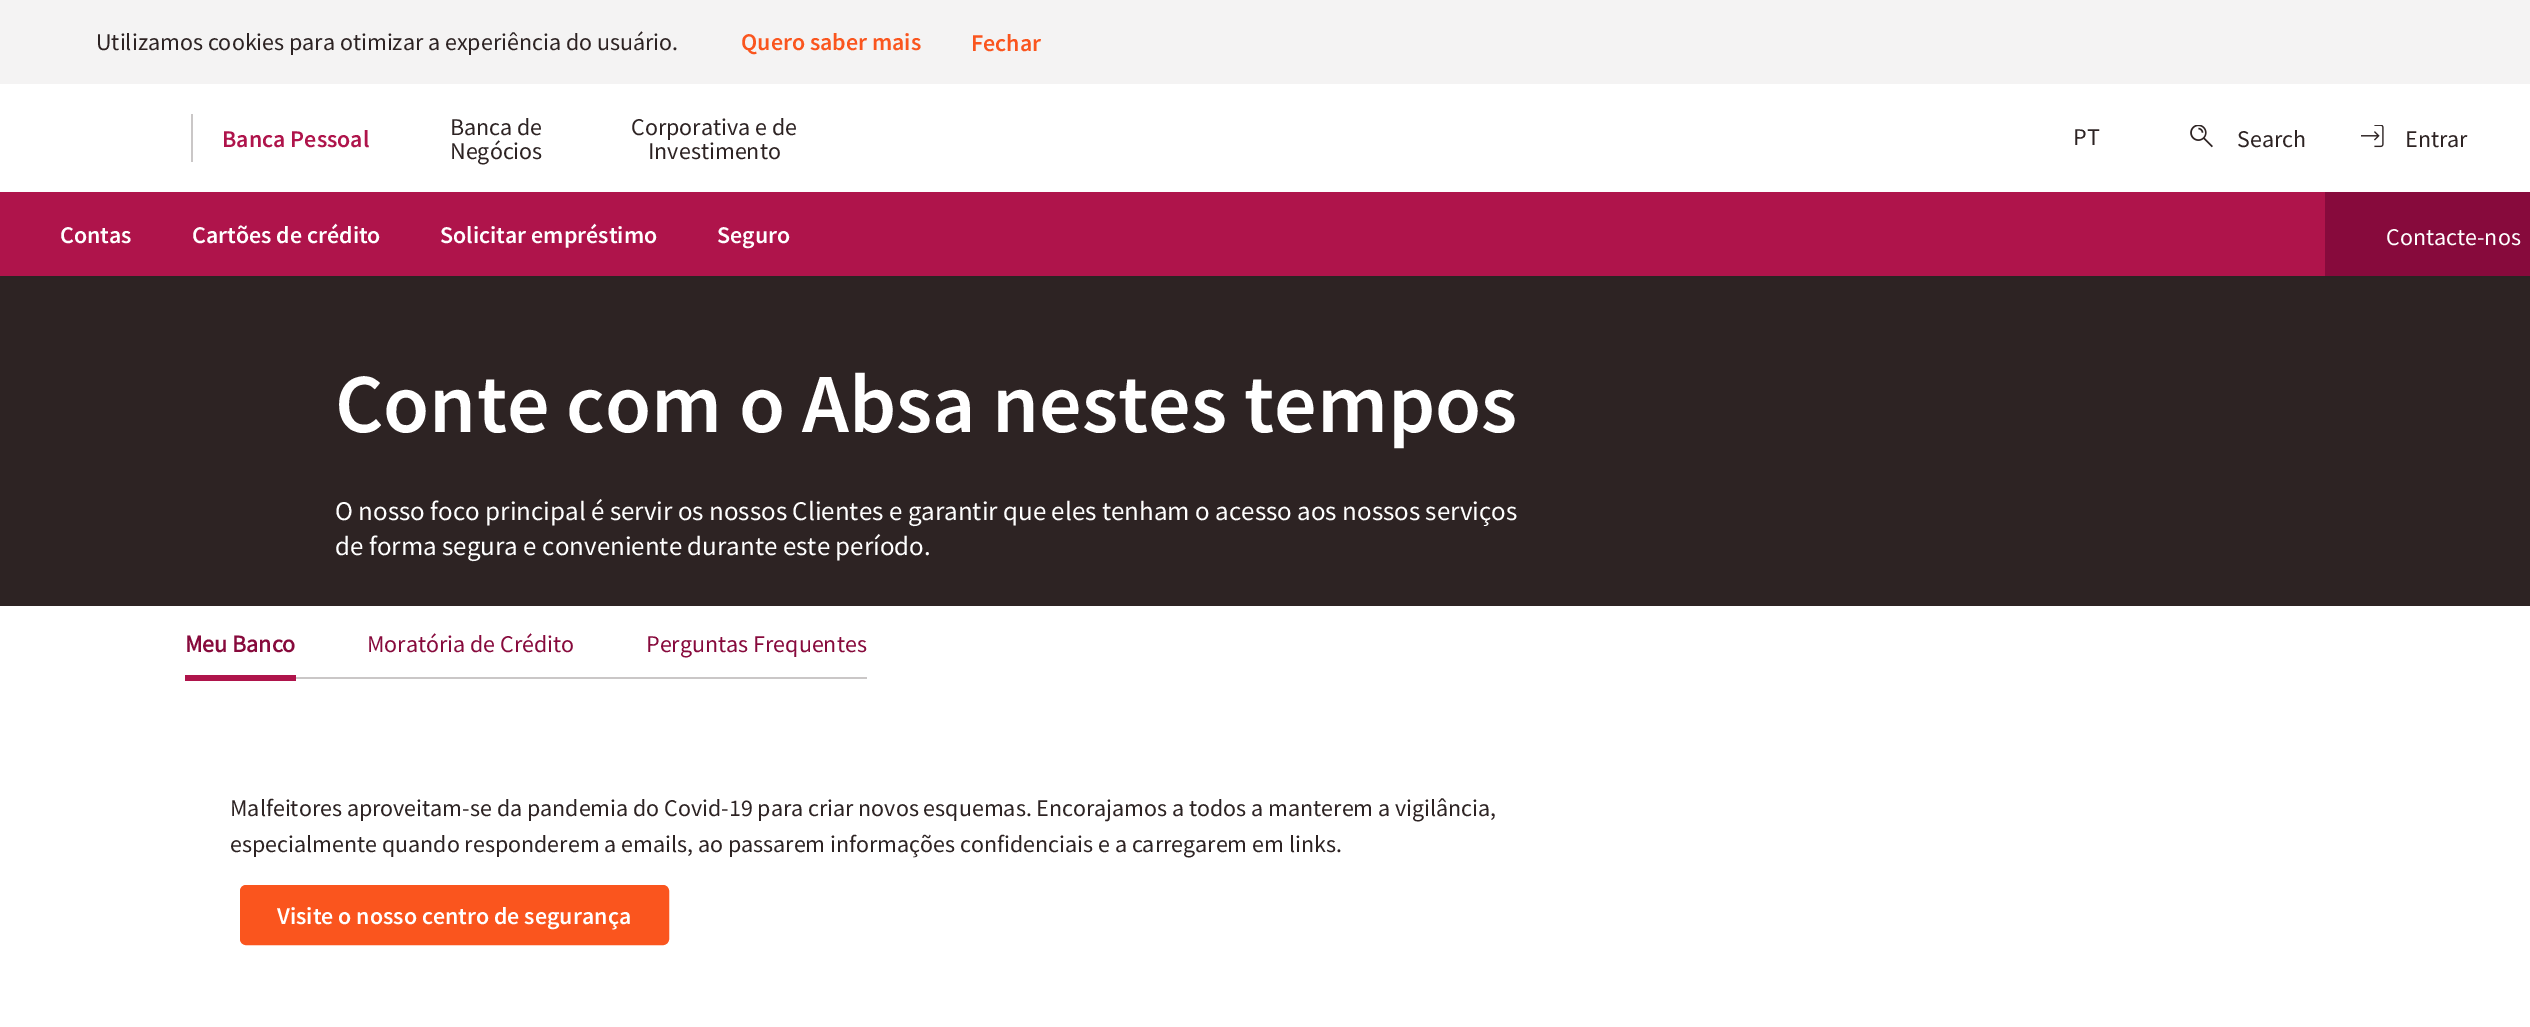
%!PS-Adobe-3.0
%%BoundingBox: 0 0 2530 1027
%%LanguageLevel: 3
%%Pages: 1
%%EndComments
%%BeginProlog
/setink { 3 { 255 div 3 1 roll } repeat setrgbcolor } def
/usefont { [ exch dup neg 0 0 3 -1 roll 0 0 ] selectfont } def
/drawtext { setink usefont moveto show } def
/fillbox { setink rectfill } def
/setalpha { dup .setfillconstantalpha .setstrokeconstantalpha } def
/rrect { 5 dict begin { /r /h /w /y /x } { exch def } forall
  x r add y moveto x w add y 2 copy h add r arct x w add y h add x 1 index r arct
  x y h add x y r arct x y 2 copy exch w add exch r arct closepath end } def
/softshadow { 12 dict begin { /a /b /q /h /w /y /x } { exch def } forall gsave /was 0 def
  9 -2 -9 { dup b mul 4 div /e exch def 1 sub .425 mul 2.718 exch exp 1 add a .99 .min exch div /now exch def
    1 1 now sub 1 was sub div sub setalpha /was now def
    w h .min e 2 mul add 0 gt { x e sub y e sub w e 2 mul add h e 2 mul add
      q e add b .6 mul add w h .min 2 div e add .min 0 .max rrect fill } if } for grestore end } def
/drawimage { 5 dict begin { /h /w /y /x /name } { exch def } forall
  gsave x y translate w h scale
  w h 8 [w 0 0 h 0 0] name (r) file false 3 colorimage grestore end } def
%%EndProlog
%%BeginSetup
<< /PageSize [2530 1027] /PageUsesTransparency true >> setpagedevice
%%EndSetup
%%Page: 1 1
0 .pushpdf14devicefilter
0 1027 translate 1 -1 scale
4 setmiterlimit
0 0 2530 1027 255 255 255 fillbox
0 0 2530 84 244 243 243 fillbox
(Utilizamos cookies para otimizar a experiência do usuário.) 96 50 /SourceSansPro-Regular 24 45 35 35 drawtext
(Quero saber mais) 741 50 /SourceSansPro-SemiBold 24 250 85 30 drawtext
(Fechar) 971 51 /SourceSansPro-SemiBold 24 250 85 30 drawtext
191 114 2 48 202 199 199 fillbox
(Banca Pessoal) 222 147 /SourceSansPro-SemiBold 24 175 20 75 drawtext
(Banca de) 450 135 /SourceSansPro-Regular 24 45 35 35 drawtext
(Negócios) 450 159 /SourceSansPro-Regular 24 45 35 35 drawtext
(Corporativa e de) 631 135 /SourceSansPro-Regular 24 45 35 35 drawtext
(Investimento) 648 159 /SourceSansPro-Regular 24 45 35 35 drawtext
0 276 2530 330 45 35 35 fillbox
0 0 0 setink
0 195 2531 84 0 3 0.05 softshadow
0 192 2325 84 175 20 75 fillbox
(Contas) 60 243 /SourceSansPro-SemiBold 24 255 255 255 drawtext
(Cartões de crédito) 192 243 /SourceSansPro-SemiBold 24 255 255 255 drawtext
(Solicitar empréstimo) 440 243 /SourceSansPro-SemiBold 24 255 255 255 drawtext
(Seguro) 717 243 /SourceSansPro-SemiBold 24 255 255 255 drawtext
2325 192 205 84 135 10 60 fillbox
(Contacte-nos) 2386 245 /SourceSansPro-Regular 24 255 255 255 drawtext
(PT) 2073 145 /SourceSansPro-Regular 24 45 35 35 drawtext
(assets/img1.rgb) 2190 125 23 23 drawimage
(Search) 2237 147 /SourceSansPro-Regular 23.98 45 35 35 drawtext
(assets/img2.rgb) 2361 125 23 23 drawimage
(Entrar) 2405 147 /SourceSansPro-Regular 23.98 45 35 35 drawtext
(Conte com o Absa nestes tempos) 335 432 /SourceSansPro-SemiBold 84 255 255 255 drawtext
(O nosso foco principal é servir os nossos Clientes e garantir que eles tenham o acesso aos nossos serviços) 335 520 /SourceSansPro-Regular 27 255 255 255 drawtext
(de forma segura e conveniente durante este período.) 335 555 /SourceSansPro-Regular 27 255 255 255 drawtext
296 677 571 2 202 199 199 fillbox
(Meu Banco) 185 652 /SourceSansPro-Bold 24 135 10 60 drawtext
185 675 111 6 175 20 75 fillbox
(Moratória de Crédito) 367 652 /SourceSansPro-Regular 24 135 10 60 drawtext
(Perguntas Frequentes) 646 652 /SourceSansPro-Regular 24 135 10 60 drawtext
(Malfeitores aproveitam-se da pandemia do Covid-19 para criar novos esquemas. Encorajamos a todos a manterem a vigilância,) 230 816 /SourceSansPro-Regular 23.98 45 35 35 drawtext
(especialmente quando responderem a emails, ao passarem informações confidenciais e a carregarem em links.) 230 852 /SourceSansPro-Regular 23.98 45 35 35 drawtext
250 85 30 setink
241 886 427 58 5 rrect gsave fill grestore
2 setlinewidth
stroke
(Visite o nosso centro de segurança) 277 924 /SourceSansPro-SemiBold 24 255 255 255 drawtext
.poppdf14devicefilter showpage
%%EOF
